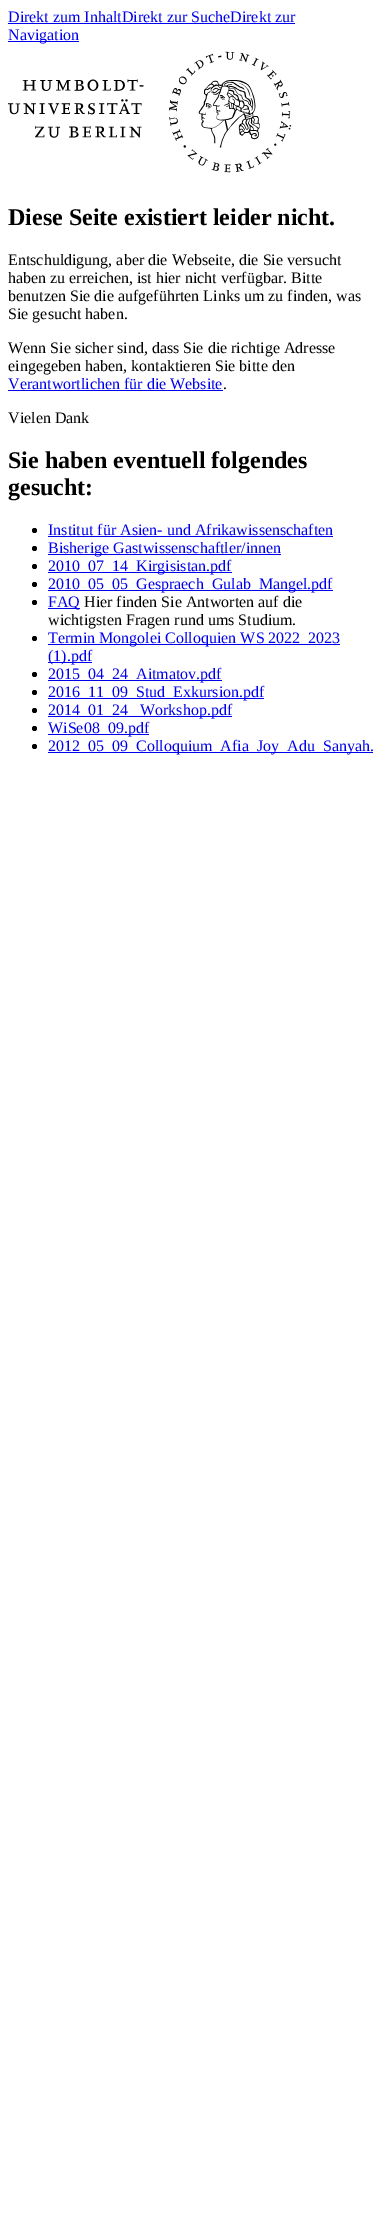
%!PS-Adobe-3.0
%%BoundingBox: 0 0 373 2237
%%LanguageLevel: 3
%%Pages: 1
%%EndComments
%%BeginProlog
/setink { 3 { 255 div 3 1 roll } repeat setrgbcolor } def
/usefont { [ exch dup neg 0 0 3 -1 roll 0 0 ] selectfont } def
/drawtext { setink usefont moveto show } def
/fillbox { setink rectfill } def
/disc { newpath 0 360 arc closepath } def
/drawimage { 5 dict begin { /h /w /y /x /name } { exch def } forall
  gsave x y translate w h scale
  w h 8 [w 0 0 h 0 0] name (r) file false 3 colorimage grestore end } def
%%EndProlog
%%BeginSetup
<< /PageSize [373 2237] >> setpagedevice
%%EndSetup
%%Page: 1 1
0 2237 translate 1 -1 scale
4 setmiterlimit
0 0 373 2237 255 255 255 fillbox
(Direkt zum InhaltDirekt zur SucheDirekt zur) 8 22 /LiberationSerif-Regular 16 0 0 238 drawtext
8 23 287 1 0 0 238 fillbox
8 41 71 1 0 0 238 fillbox
(Navigation) 8 40 /LiberationSerif-Regular 16 0 0 238 drawtext
(assets/img1.rgb) 8 51 284 122 drawimage
(Diese Seite existiert leider nicht.) 8 225 /LiberationSerif-Bold 24 0 0 0 drawtext
(Entschuldigung, aber die Webseite, die Sie versucht) 8 265 /LiberationSerif-Regular 16 0 0 0 drawtext
(haben zu erreichen, ist hier nicht verfügbar. Bitte) 8 283 /LiberationSerif-Regular 16 0 0 0 drawtext
(benutzen Sie die aufgeführten Links um zu finden, was) 8 301 /LiberationSerif-Regular 16 0 0 0 drawtext
(Sie gesucht haben.) 8 319 /LiberationSerif-Regular 16 0 0 0 drawtext
(Wenn Sie sicher sind, dass Sie die richtige Adresse) 8 353 /LiberationSerif-Regular 16 0 0 0 drawtext
(eingegeben haben, kontaktieren Sie bitte den) 8 371 /LiberationSerif-Regular 16 0 0 0 drawtext
(Verantwortlichen für die Website) 8 389 /LiberationSerif-Regular 16 0 0 238 drawtext
8 390 215 1 0 0 238 fillbox
(.) 223 389 /LiberationSerif-Regular 16 0 0 0 drawtext
(Vielen Dank) 8 423 /LiberationSerif-Regular 16 0 0 0 drawtext
(Sie haben eventuell folgendes) 8 468 /LiberationSerif-Bold 24 0 0 0 drawtext
(gesucht:) 8 495 /LiberationSerif-Bold 24 0 0 0 drawtext
34.5 530.5 2.5 disc fill
(Institut für Asien- und Afrikawissenschaften) 48 535 /LiberationSerif-Regular 16 0 0 238 drawtext
48 536 285 1 0 0 238 fillbox
0 0 0 setink
34.5 548.5 2.5 disc fill
48 554 233 1 0 0 238 fillbox
(Bisherige Gastwissenschaftler/innen) 48 553 /LiberationSerif-Regular 16 0 0 238 drawtext
0 0 0 setink
34.5 566.5 2.5 disc fill
48 572 184 1 0 0 238 fillbox
(2010_07_14_Kirgisistan.pdf) 48 571 /LiberationSerif-Regular 16 0 0 238 drawtext
0 0 0 setink
34.5 584.5 2.5 disc fill
48 590 285 1 0 0 238 fillbox
(2010_05_05_Gespraech_Gulab_Mangel.pdf) 48 589 /LiberationSerif-Regular 16 0 0 238 drawtext
0 0 0 setink
34.5 602.5 2.5 disc fill
48 608 32 1 0 0 238 fillbox
(FAQ) 48 607 /LiberationSerif-Regular 16 0 0 238 drawtext
(Hier finden Sie Antworten auf die) 84 607 /LiberationSerif-Regular 16 0 0 0 drawtext
(wichtigsten Fragen rund ums Studium.) 48 625 /LiberationSerif-Regular 16 0 0 0 drawtext
34.5 638.5 2.5 disc fill
48 644 292 1 0 0 238 fillbox
(Termin Mongolei Colloquien WS 2022_2023) 48 643 /LiberationSerif-Regular 16 0 0 238 drawtext
48 662 44 1 0 0 238 fillbox
(\(1\).pdf) 48 661 /LiberationSerif-Regular 16 0 0 238 drawtext
0 0 0 setink
34.5 674.5 2.5 disc fill
48 680 174 1 0 0 238 fillbox
(2015_04_24_Aitmatov.pdf) 48 679 /LiberationSerif-Regular 16 0 0 238 drawtext
0 0 0 setink
34.5 692.5 2.5 disc fill
48 698 216 1 0 0 238 fillbox
(2016_11_09_Stud_Exkursion.pdf) 48 697 /LiberationSerif-Regular 16 0 0 238 drawtext
0 0 0 setink
34.5 710.5 2.5 disc fill
48 716 184 1 0 0 238 fillbox
(2014_01_24_ Workshop.pdf) 48 715 /LiberationSerif-Regular 16 0 0 238 drawtext
0 0 0 setink
34.5 728.5 2.5 disc fill
48 734 101 1 0 0 238 fillbox
(WiSe08_09.pdf) 48 733 /LiberationSerif-Regular 16 0 0 238 drawtext
0 0 0 setink
34.5 746.5 2.5 disc fill
48 752 325 1 0 0 238 fillbox
(2012_05_09_Colloquium_Afia_Joy_Adu_Sanyah.) 48 751 /LiberationSerif-Regular 16 0 0 238 drawtext
showpage
%%EOF
